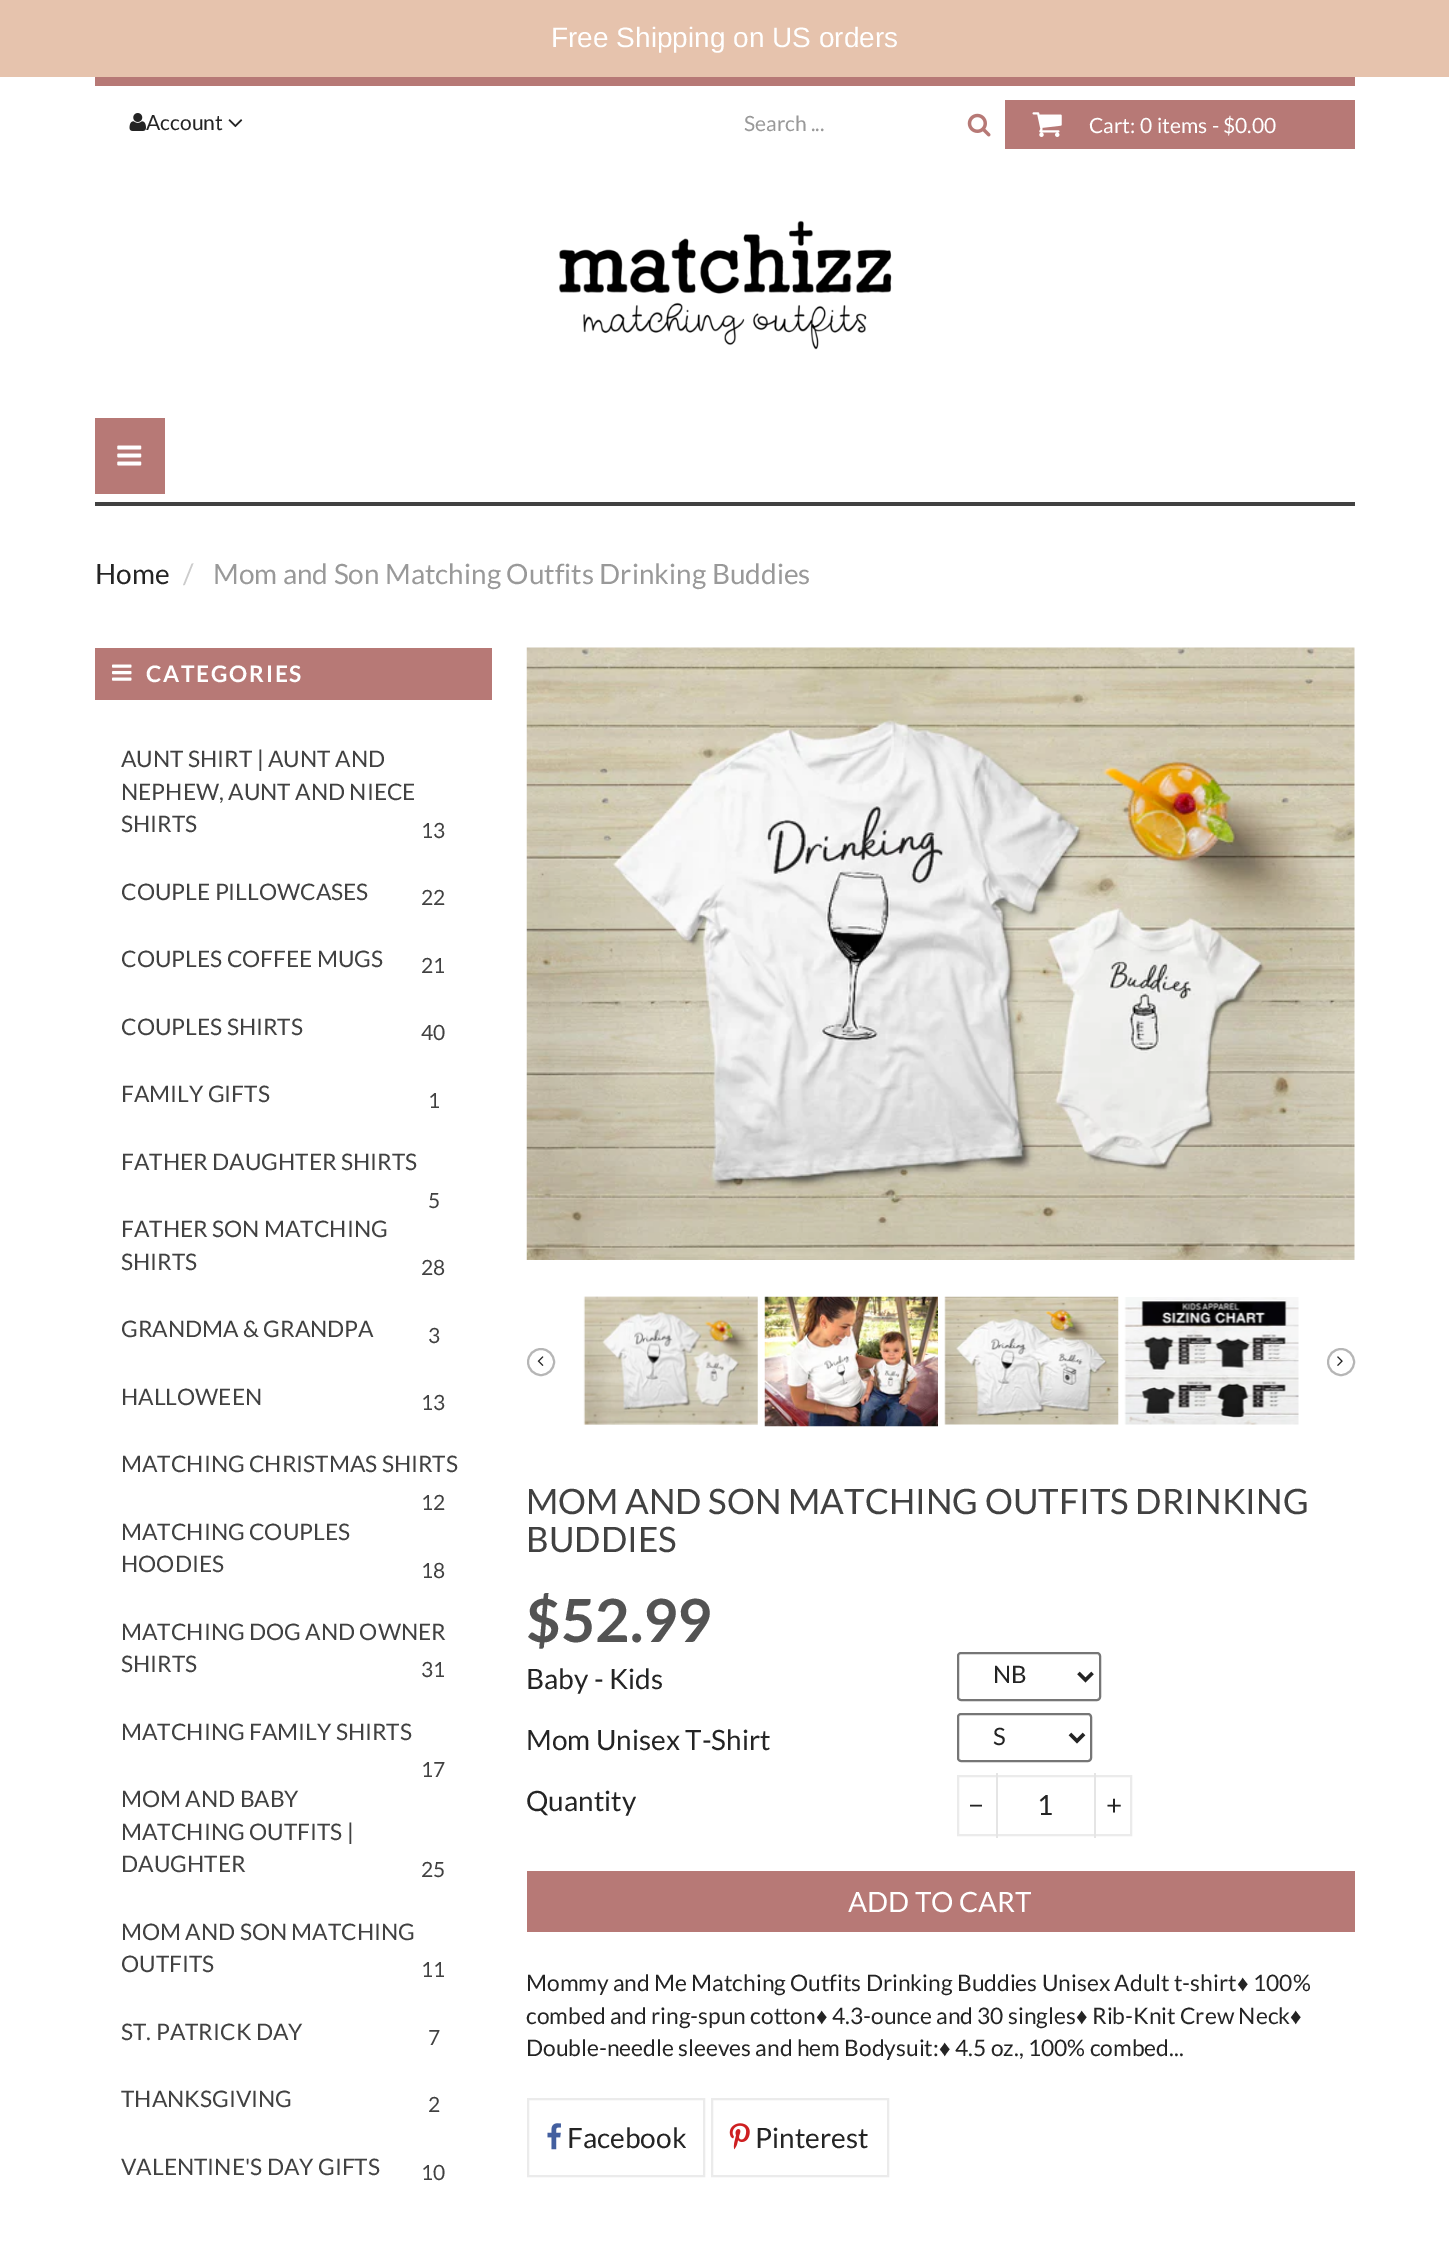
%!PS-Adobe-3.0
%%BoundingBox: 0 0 1449 2262
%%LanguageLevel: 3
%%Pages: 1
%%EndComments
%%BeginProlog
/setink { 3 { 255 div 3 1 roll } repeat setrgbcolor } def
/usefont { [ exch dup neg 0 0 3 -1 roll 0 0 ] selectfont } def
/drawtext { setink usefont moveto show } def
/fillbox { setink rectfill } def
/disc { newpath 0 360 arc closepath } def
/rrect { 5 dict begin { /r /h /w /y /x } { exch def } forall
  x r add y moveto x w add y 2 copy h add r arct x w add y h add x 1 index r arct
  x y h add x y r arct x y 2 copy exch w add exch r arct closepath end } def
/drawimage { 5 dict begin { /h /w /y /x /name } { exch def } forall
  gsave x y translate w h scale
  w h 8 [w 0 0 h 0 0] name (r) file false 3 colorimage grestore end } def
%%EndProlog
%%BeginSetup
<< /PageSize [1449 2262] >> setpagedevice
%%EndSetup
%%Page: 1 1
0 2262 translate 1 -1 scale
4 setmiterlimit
0 0 1449 2262 255 255 255 fillbox
0 0 1449 77 230 195 173 fillbox
(Free Shipping on US orders) 551 47 /LiberationSans-Regular 28 255 255 255 drawtext
95 77 1260 9 183 121 118 fillbox
(assets/img1.rgb) 129 113 17 18 drawimage
(Account) 146 130 /Lato-Regular 21 36 36 36 drawtext
(assets/img2.rgb) 228 119 15 9 drawimage
(Search ...) 744 131 /Lato-Regular 21 153 153 153 drawtext
(assets/img3.rgb) 967 113 24 24 drawimage
1005 100 350 49 183 121 118 fillbox
(assets/img4.rgb) 1032 112 30 25 drawimage
(Cart: 0) 1089 133 /Lato-Regular 21 255 255 255 drawtext
(items - $0.00) 1157 133 /Lato-Regular 21 255 255 255 drawtext
(assets/img5.rgb) 559 220 333 130 drawimage
95 502 1260 4 65 65 65 fillbox
95 418 70 76 183 121 118 fillbox
(assets/img6.rgb) 117 445 25 21 drawimage
(Home) 95 584 /Lato-Regular 28 36 36 36 drawtext
(/) 183 584 /Lato-Regular 28 204 204 204 drawtext
(Mom and Son Matching Outfits Drinking Buddies) 213 584 /Lato-Regular 28 153 153 153 drawtext
95 648 397 52 183 121 118 fillbox
(assets/img7.rgb) 112 664 20 17 drawimage
/Lato-Bold 22.75 usefont
255 255 255 setink
146 682 moveto 1.75 0 (CATEGORIES) ashow
(AUNT SHIRT | AUNT AND) 121 767 /Lato-Regular 22.75 65 65 65 drawtext
(NEPHEW, AUNT AND NIECE) 121 800 /Lato-Regular 22.75 65 65 65 drawtext
(SHIRTS) 121 832 /Lato-Regular 22.75 65 65 65 drawtext
(13) 421 838 /Lato-Regular 21 65 65 65 drawtext
(COUPLE PILLOWCASES) 121 900 /Lato-Regular 22.75 65 65 65 drawtext
(22) 421 905 /Lato-Regular 21 65 65 65 drawtext
(COUPLES COFFEE MUGS) 121 967 /Lato-Regular 22.75 65 65 65 drawtext
(21) 421 973 /Lato-Regular 21 65 65 65 drawtext
(COUPLES SHIRTS) 121 1035 /Lato-Regular 22.75 65 65 65 drawtext
(40) 421 1040 /Lato-Regular 21 65 65 65 drawtext
(FAMILY GIFTS) 121 1102 /Lato-Regular 22.75 65 65 65 drawtext
(1) 428 1108 /Lato-Regular 21 65 65 65 drawtext
(FATHER DAUGHTER SHIRTS) 121 1170 /Lato-Regular 22.75 65 65 65 drawtext
(5) 428 1208 /Lato-Regular 21 65 65 65 drawtext
(FATHER SON MATCHING) 121 1237 /Lato-Regular 22.75 65 65 65 drawtext
(SHIRTS) 121 1270 /Lato-Regular 22.75 65 65 65 drawtext
(28) 421 1275 /Lato-Regular 21 65 65 65 drawtext
(GRANDMA & GRANDPA) 121 1337 /Lato-Regular 22.75 65 65 65 drawtext
(3) 428 1343 /Lato-Regular 21 65 65 65 drawtext
(HALLOWEEN) 121 1405 /Lato-Regular 22.75 65 65 65 drawtext
(13) 421 1410 /Lato-Regular 21 65 65 65 drawtext
(MATCHING CHRISTMAS SHIRTS) 121 1472 /Lato-Regular 22.75 65 65 65 drawtext
(12) 421 1510 /Lato-Regular 21 65 65 65 drawtext
(MATCHING COUPLES) 121 1540 /Lato-Regular 22.75 65 65 65 drawtext
(HOODIES) 121 1572 /Lato-Regular 22.75 65 65 65 drawtext
(18) 421 1578 /Lato-Regular 21 65 65 65 drawtext
(MATCHING DOG AND OWNER) 121 1640 /Lato-Regular 22.75 65 65 65 drawtext
(SHIRTS) 121 1672 /Lato-Regular 22.75 65 65 65 drawtext
(31) 421 1677 /Lato-Regular 21 65 65 65 drawtext
(MATCHING FAMILY SHIRTS) 121 1740 /Lato-Regular 22.75 65 65 65 drawtext
(17) 421 1777 /Lato-Regular 21 65 65 65 drawtext
(MOM AND BABY) 121 1807 /Lato-Regular 22.75 65 65 65 drawtext
(MATCHING OUTFITS |) 121 1840 /Lato-Regular 22.75 65 65 65 drawtext
(DAUGHTER) 121 1872 /Lato-Regular 22.75 65 65 65 drawtext
(25) 421 1877 /Lato-Regular 21 65 65 65 drawtext
(MOM AND SON MATCHING) 121 1940 /Lato-Regular 22.75 65 65 65 drawtext
(OUTFITS) 121 1972 /Lato-Regular 22.75 65 65 65 drawtext
(11) 421 1977 /Lato-Regular 21 65 65 65 drawtext
(ST. PATRICK DAY) 121 2040 /Lato-Regular 22.75 65 65 65 drawtext
(7) 428 2045 /Lato-Regular 21 65 65 65 drawtext
(THANKSGIVING) 121 2107 /Lato-Regular 22.75 65 65 65 drawtext
(2) 428 2112 /Lato-Regular 21 65 65 65 drawtext
(VALENTINE'S DAY GIFTS) 121 2175 /Lato-Regular 22.75 65 65 65 drawtext
(10) 421 2180 /Lato-Regular 21 65 65 65 drawtext
(assets/img8.rgb) 526 647 829 613 drawimage
(assets/img9.rgb) 583 1296 175 129 drawimage
(assets/img10.rgb) 764 1296 174 131 drawimage
(assets/img11.rgb) 944 1296 175 129 drawimage
(assets/img12.rgb) 1124 1297 175 128 drawimage
182 182 182 setink
2 setlinewidth
541 1362 13 disc stroke
(assets/img13.rgb) 537 1356 7 10 drawimage
1341 1362 13 disc stroke
(assets/img14.rgb) 1337 1356 6 10 drawimage
(MOM AND SON MATCHING OUTFITS DRINKING) 526 1514 /Lato-Regular 35 65 65 65 drawtext
(BUDDIES) 526 1552 /Lato-Regular 35 65 65 65 drawtext
($52.99) 526 1642 /Lato-Bold 59.5 83 83 83 drawtext
(Baby - Kids) 526 1689 /Lato-Regular 28 36 36 36 drawtext
118 118 118 setink
958 1653 142 47 3 rrect stroke
36 36 36 setink
3.5 setlinewidth
1078.5 1673 moveto 1085.5 1680 lineto 1092.5 1673 lineto stroke
(NB) 993 1683 /Lato-Regular 24 36 36 36 drawtext
(Mom Unisex T-Shirt) 526 1750 /Lato-Regular 28 36 36 36 drawtext
118 118 118 setink
2 setlinewidth
958 1714 133 47 3 rrect stroke
36 36 36 setink
3.5 setlinewidth
1070 1734 moveto 1077 1741 lineto 1084 1734 lineto stroke
(S) 993 1745 /Lato-Regular 24 36 36 36 drawtext
(Quantity) 526 1811 /Lato-Regular 28 36 36 36 drawtext
235 235 235 setink
2 setlinewidth
958 1776 173 59 rectstroke
996 1773 2 65 229 229 229 fillbox
(−) 968 1815 /Lato-Regular 28 36 36 36 drawtext
(1) 1037 1815 /Lato-Regular 28 36 36 36 drawtext
1094 1773 2 65 229 229 229 fillbox
(+) 1106 1815 /Lato-Regular 28 36 36 36 drawtext
527 1871 828 61 183 121 118 fillbox
(ADD TO CART) 848 1912 /Lato-Regular 28 255 255 255 drawtext
(Mommy and Me Matching Outfits Drinking Buddies Unisex Adult t-shirt) 526 1991 /Lato-Regular 22.75 36 36 36 drawtext
(♦) 1237 1991 /LiberationSerif-Regular 22.75 36 36 36 drawtext
(100%) 1253 1991 /Lato-Regular 22.75 36 36 36 drawtext
(combed and ring-spun cotton) 526 2024 /Lato-Regular 22.75 36 36 36 drawtext
(♦) 816 2024 /LiberationSerif-Regular 22.75 36 36 36 drawtext
(4.3-ounce and 30 singles) 832 2024 /Lato-Regular 22.75 36 36 36 drawtext
(♦) 1076 2024 /LiberationSerif-Regular 22.75 36 36 36 drawtext
(Rib-Knit Crew Neck) 1092 2024 /Lato-Regular 22.75 36 36 36 drawtext
(♦) 1290 2024 /LiberationSerif-Regular 22.75 36 36 36 drawtext
(Double-needle sleeves and hem Bodysuit:) 526 2056 /Lato-Regular 22.75 36 36 36 drawtext
(♦) 939 2056 /LiberationSerif-Regular 22.75 36 36 36 drawtext
(4.5 oz., 100% combed...) 955 2056 /Lato-Regular 22.75 36 36 36 drawtext
235 235 235 setink
528 2099 176 77 rectstroke
(assets/img15.rgb) 547 2123 14 27 drawimage
(Facebook) 567 2148 /Lato-Regular 28 36 36 36 drawtext
235 235 235 setink
712 2099 176 77 rectstroke
(assets/img16.rgb) 729 2123 21 27 drawimage
(Pinterest) 755 2148 /Lato-Regular 28 36 36 36 drawtext
showpage
%%EOF
